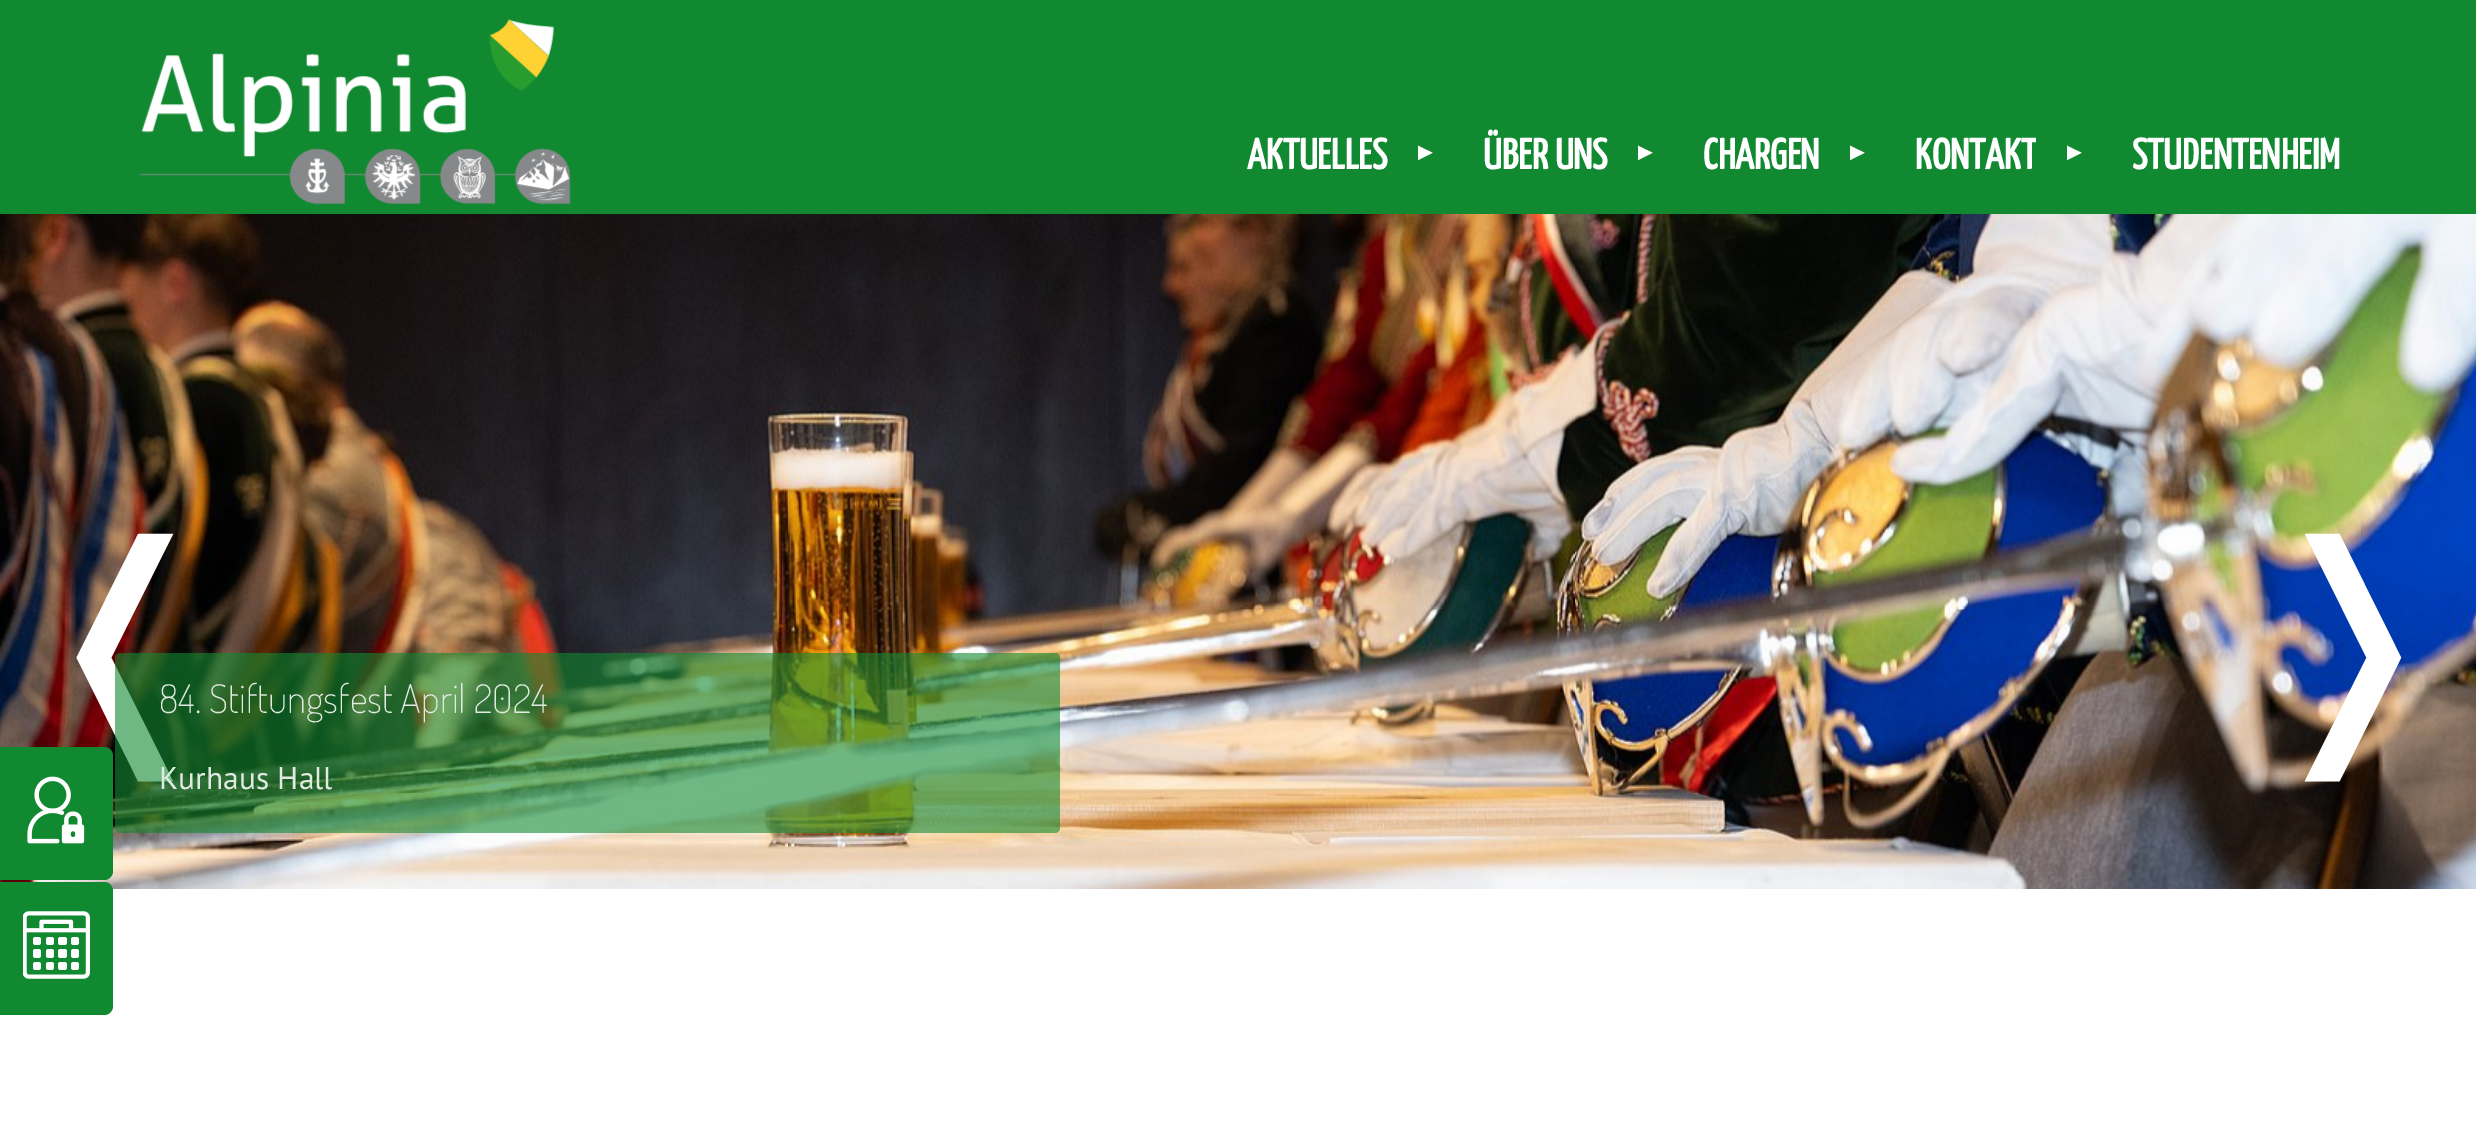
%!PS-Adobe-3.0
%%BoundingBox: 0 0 2476 1146
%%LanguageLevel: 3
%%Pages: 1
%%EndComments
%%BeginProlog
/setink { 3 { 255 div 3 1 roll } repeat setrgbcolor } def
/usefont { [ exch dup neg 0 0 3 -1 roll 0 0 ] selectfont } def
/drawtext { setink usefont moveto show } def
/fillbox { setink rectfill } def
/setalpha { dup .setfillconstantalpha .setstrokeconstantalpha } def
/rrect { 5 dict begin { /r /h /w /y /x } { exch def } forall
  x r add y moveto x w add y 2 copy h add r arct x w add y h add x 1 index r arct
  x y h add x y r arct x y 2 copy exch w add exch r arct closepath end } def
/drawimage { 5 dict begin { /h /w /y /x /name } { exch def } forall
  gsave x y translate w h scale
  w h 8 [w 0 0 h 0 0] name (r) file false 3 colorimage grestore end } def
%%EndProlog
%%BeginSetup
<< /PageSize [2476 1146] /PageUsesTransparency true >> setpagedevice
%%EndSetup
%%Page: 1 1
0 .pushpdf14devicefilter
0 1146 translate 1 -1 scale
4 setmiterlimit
0 0 2476 1146 255 255 255 fillbox
0 0 2476 214 17 137 49 fillbox
(assets/img1.rgb) 139 19 432 186 drawimage
(AKTUELLES) 1247 169 /YanoneKaffeesatz-Bold 43 255 255 255 drawtext
(►) 1413 160 /LiberationSans-Bold 25 255 255 255 drawtext
(ÜBER UNS) 1483 169 /YanoneKaffeesatz-Bold 43 255 255 255 drawtext
(►) 1633 160 /LiberationSans-Bold 25 255 255 255 drawtext
(CHARGEN) 1703 169 /YanoneKaffeesatz-Bold 43 255 255 255 drawtext
(►) 1845 160 /LiberationSans-Bold 25 255 255 255 drawtext
gsave
1892 101 144 113 rectclip
(KONTAKT) 1915 169 /YanoneKaffeesatz-Bold 43 255 255 255 drawtext
grestore
(►) 2062 160 /LiberationSans-Bold 25 255 255 255 drawtext
(STUDENTENHEIM) 2132 169 /YanoneKaffeesatz-Bold 43 255 255 255 drawtext
(assets/img2.rgb) 0 214 2476 675 drawimage
(❬) 23 722 /DejaVuSans-Regular 248 255 255 255 drawtext
0.6 setalpha
17 137 49 setink
115 653 945 180 5 rrect fill
1 setalpha
(84. Stiftungsfest April 2024) 159 713 /Dosis-ExtraLight 39.5 225 234 225 drawtext
(Kurhaus Hall) 159 789 /PTSans-Regular 31.5 225 234 225 drawtext
(❭) 2247 722 /DejaVuSans-Regular 248 255 255 255 drawtext
17 137 49 setink
-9 747 moveto 104 747 lineto 109 747 113 751 113 756 curveto 113 871 lineto 113 876 109 880 104 880 curveto -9 880 lineto closepath fill
(assets/img3.rgb) 27 776 58 68 drawimage
-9 882 moveto 104 882 lineto 109 882 113 886 113 891 curveto 113 1006 lineto 113 1011 109 1015 104 1015 curveto -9 1015 lineto closepath fill
(assets/img4.rgb) 23 911 67 68 drawimage
.poppdf14devicefilter showpage
%%EOF
